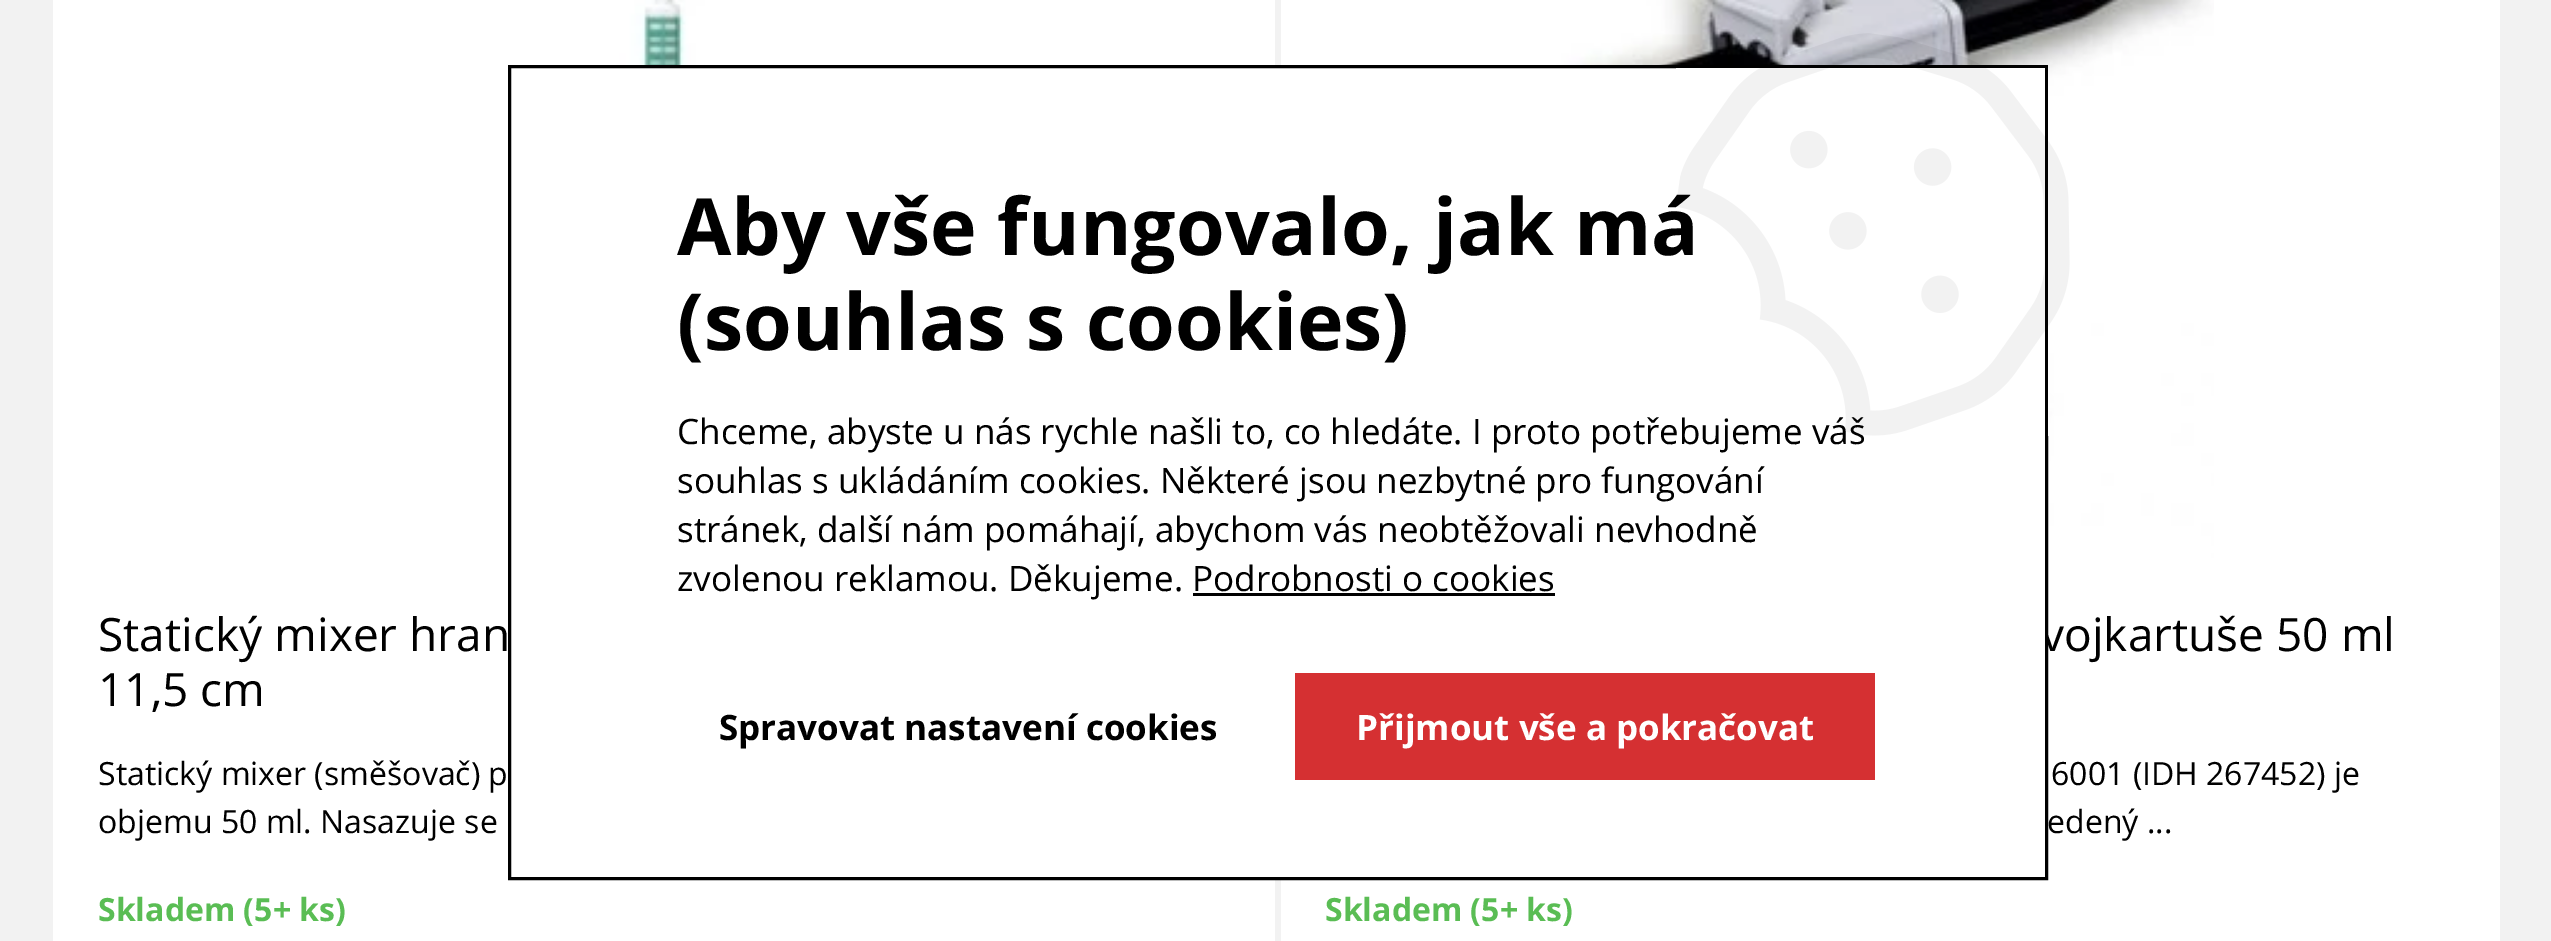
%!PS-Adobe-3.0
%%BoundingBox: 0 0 2551 941
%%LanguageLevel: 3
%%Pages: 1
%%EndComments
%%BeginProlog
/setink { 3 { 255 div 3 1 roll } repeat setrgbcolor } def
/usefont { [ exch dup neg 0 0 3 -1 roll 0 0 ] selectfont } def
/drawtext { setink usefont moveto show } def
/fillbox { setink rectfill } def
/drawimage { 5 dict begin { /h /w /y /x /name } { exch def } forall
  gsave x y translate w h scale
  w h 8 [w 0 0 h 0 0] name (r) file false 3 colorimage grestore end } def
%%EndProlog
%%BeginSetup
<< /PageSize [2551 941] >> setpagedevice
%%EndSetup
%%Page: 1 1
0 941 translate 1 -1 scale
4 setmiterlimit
0 0 2551 941 242 242 242 fillbox
1281 0 1219 941 255 255 255 fillbox
(assets/img3.rgb) 1556 0 658 558 drawimage
(vojkartuše 50 ml) 2041 651 /OpenSans-Regular 46 0 0 0 drawtext
1275 68 770 809 255 255 255 fillbox
53 0 1222 941 255 255 255 fillbox
0 0 0 setink
3 setlinewidth
509.5 66.5 1537 812 rectstroke
(assets/img1.rgb) 1676 33 394 403 drawimage
(Aby vše fungovalo, jak má) 677 255 /OpenSans-Bold 78.75 0 0 0 drawtext
(\(souhlas s cookies\)) 677 350 /OpenSans-Bold 78.75 0 0 0 drawtext
(Chceme, abyste u nás rychle našli to, co hledáte. I proto potřebujeme váš) 677 444 /OpenSans-Regular 35 0 0 0 drawtext
(souhlas s ukládáním cookies. Některé jsou nezbytné pro fungování) 677 493 /OpenSans-Regular 35 0 0 0 drawtext
(stránek, další nám pomáhají, abychom vás neobtěžovali nevhodně) 677 542 /OpenSans-Regular 35 0 0 0 drawtext
(zvolenou reklamou. Děkujeme. Podrobnosti o cookies) 677 591 /OpenSans-Regular 35 0 0 0 drawtext
1193 593 362 3 0 0 0 fillbox
(Spravovat nastavení cookies) 719 740 /OpenSans-Bold 35 0 0 0 drawtext
1295 673 580 107 213 48 50 fillbox
(Přijmout vše a pokračovat) 1356 740 /OpenSans-Bold 35 255 255 255 drawtext
(assets/img2.rgb) 616 0 89 65 drawimage
(Statický mixer hran) 98 651 /OpenSans-Regular 46 0 0 0 drawtext
(11,5 cm) 98 706 /OpenSans-Regular 46 0 0 0 drawtext
(Statický mixer \(směšovač\) p) 98 785 /OpenSans-Regular 32 0 0 0 drawtext
(objemu 50 ml. Nasazuje se) 98 833 /OpenSans-Regular 32 0 0 0 drawtext
(Skladem \(5+ ks\)) 98 921 /OpenSans-Bold 32 90 189 84 drawtext
(6001 \(IDH 267452\) je) 2051 785 /OpenSans-Regular 32 0 0 0 drawtext
(edený ...) 2047 833 /OpenSans-Regular 32 0 0 0 drawtext
(Skladem \(5+ ks\)) 1325 921 /OpenSans-Bold 32 90 189 84 drawtext
showpage
%%EOF
